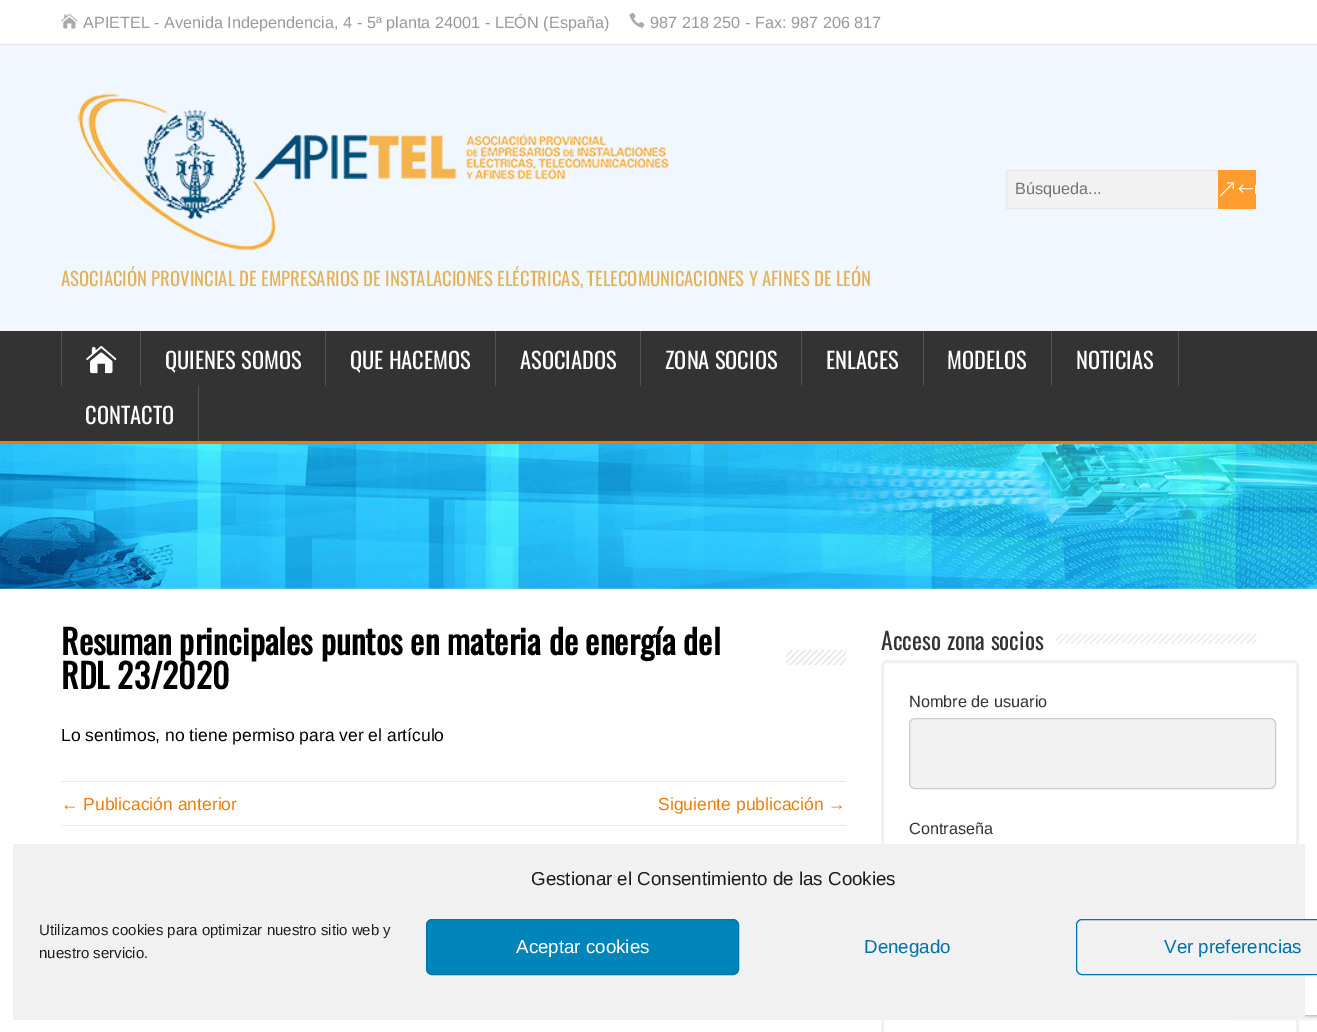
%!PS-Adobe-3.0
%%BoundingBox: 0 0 1317 1032
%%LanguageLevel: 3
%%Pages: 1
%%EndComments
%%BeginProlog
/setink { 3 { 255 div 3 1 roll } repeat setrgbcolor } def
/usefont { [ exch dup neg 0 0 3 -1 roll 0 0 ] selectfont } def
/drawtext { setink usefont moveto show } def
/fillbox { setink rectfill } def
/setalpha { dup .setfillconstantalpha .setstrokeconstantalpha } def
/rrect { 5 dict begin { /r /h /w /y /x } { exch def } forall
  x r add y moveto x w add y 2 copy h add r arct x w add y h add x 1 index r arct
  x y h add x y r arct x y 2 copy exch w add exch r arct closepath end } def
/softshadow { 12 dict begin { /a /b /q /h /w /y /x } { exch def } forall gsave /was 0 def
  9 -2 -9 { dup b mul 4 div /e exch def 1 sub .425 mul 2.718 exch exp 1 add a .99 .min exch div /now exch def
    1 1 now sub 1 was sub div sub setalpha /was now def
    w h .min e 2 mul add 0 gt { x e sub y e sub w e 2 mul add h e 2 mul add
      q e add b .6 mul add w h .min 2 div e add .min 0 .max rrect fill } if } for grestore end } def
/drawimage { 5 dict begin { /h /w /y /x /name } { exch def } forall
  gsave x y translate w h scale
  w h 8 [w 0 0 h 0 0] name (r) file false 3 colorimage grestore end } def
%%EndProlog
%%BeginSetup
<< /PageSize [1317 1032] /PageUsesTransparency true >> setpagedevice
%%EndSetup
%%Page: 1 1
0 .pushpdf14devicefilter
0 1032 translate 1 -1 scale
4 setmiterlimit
0 0 1317 1032 255 255 255 fillbox
0 44 1317 1 230 230 230 fillbox
(assets/img1.rgb) 61 13 17 16 drawimage
(APIETEL - Avenida Independencia, 4 - 5ª planta 24001 - LEÓN \(España\)) 83 28 /LiberationSans-Regular 16.25 153 153 153 drawtext
(assets/img2.rgb) 629 13 16 15 drawimage
(987 218 250 - Fax: 987 206 817) 650 28 /LiberationSans-Regular 16.25 153 153 153 drawtext
0 45 1317 286 240 247 255 fillbox
(assets/img3.rgb) 77 93 593 158 drawimage
1007 171 211 37 242 242 242 fillbox
230 230 230 setink
1006.5 170.5 249 38 rectstroke
(Búsqueda...) 1015 194 /LiberationSans-Regular 16.25 117 117 117 drawtext
1218 170 38 39 255 156 48 fillbox
(assets/img4.rgb) 1219 182 37 15 drawimage
(ASOCIACIÓN PROVINCIAL DE EMPRESARIOS DE INSTALACIONES ELÉCTRICAS, TELECOMUNICACIONES Y AFINES DE LEÓN) 61 286 /Oswald-Regular 18.75 228 178 86 drawtext
0 331 1317 110 51 51 51 fillbox
0 441 1317 3 237 124 0 fillbox
140 331 1 55 83 83 83 fillbox
61 331 1 55 83 83 83 fillbox
(assets/img5.rgb) 86 346 31 28 drawimage
325 331 1 55 83 83 83 fillbox
(QUIENES SOMOS) 165 369 /Oswald-Regular 22.5 255 255 255 drawtext
495 331 1 55 83 83 83 fillbox
(QUE HACEMOS) 350 369 /Oswald-Regular 22.5 255 255 255 drawtext
640 331 1 55 83 83 83 fillbox
(ASOCIADOS) 520 369 /Oswald-Regular 22.5 255 255 255 drawtext
801 331 1 55 83 83 83 fillbox
(ZONA SOCIOS) 665 369 /Oswald-Regular 22.5 255 255 255 drawtext
923 331 1 55 83 83 83 fillbox
(ENLACES) 826 369 /Oswald-Regular 22.5 255 255 255 drawtext
1051 331 1 55 83 83 83 fillbox
(MODELOS) 947 369 /Oswald-Regular 22.5 255 255 255 drawtext
1178 331 1 55 83 83 83 fillbox
(NOTICIAS) 1076 369 /Oswald-Regular 22.5 255 255 255 drawtext
198 386 1 55 83 83 83 fillbox
(CONTACTO) 85 424 /Oswald-Regular 22.5 255 255 255 drawtext
(assets/img6.rgb) 0 444 1317 145 drawimage
(assets/img7.rgb) 786 650 61 15 drawimage
(Resuman principales puntos en materia de energía del) 61 655 /Oswald-Bold 33.75 0 0 0 drawtext
(RDL 23/2020) 61 689 /Oswald-Bold 33.75 0 0 0 drawtext
(Lo sentimos, no tiene permiso para ver el artículo) 61 741 /LiberationSans-Regular 17.5 0 0 0 drawtext
61 781 785 1 232 232 232 fillbox
61 825 785 1 232 232 232 fillbox
(← Publicación anterior) 61 810 /LiberationSans-Regular 17.5 237 124 0 drawtext
(Siguiente publicación →) 658 810 /LiberationSans-Regular 17.5 237 124 0 drawtext
(assets/img8.rgb) 1056 633 201 11 drawimage
(Acceso zona socios) 881 650 /Oswald-Regular 23.75 51 51 51 drawtext
241 241 241 setink
3 setlinewidth
882.5 661.5 415 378 4.5 rrect stroke
(Nombre de usuario) 909 707 /LiberationSans-Regular 16.25 51 51 51 drawtext
242 242 242 setink
909.5 718.5 366 70 5.5 rrect gsave fill grestore
204 204 204 setink
1 setlinewidth
stroke
(Contraseña) 909 834 /LiberationSans-Regular 16.25 51 51 51 drawtext
gsave
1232 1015 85 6 rectclip
128 128 128 setink
1230 940 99 75 2.5 3 1 softshadow
grestore
13 844 1292 176 241 241 241 fillbox
(Gestionar el Consentimiento de las Cookies) 531 885 /LiberationSans-Regular 18.75 25 30 35 drawtext
(Utilizamos cookies para optimizar nuestro sitio web y) 39 935 /LiberationSans-Regular 15 25 30 35 drawtext
(nuestro servicio.) 39 958 /LiberationSans-Regular 15 25 30 35 drawtext
0 133 186 setink
426.5 919.5 312 55 5.5 rrect gsave fill grestore
0 115 170 setink
stroke
(Aceptar cookies) 516 953 /LiberationSans-Regular 18.75 255 255 255 drawtext
(Denegado) 864 953 /LiberationSans-Regular 18.75 0 115 170 drawtext
241 241 241 setink
1076.5 919.5 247 55 5.5 rrect gsave fill grestore
0 115 170 setink
stroke
(Ver preferencias) 1164 953 /LiberationSans-Regular 18.75 0 115 170 drawtext
.poppdf14devicefilter showpage
%%EOF
